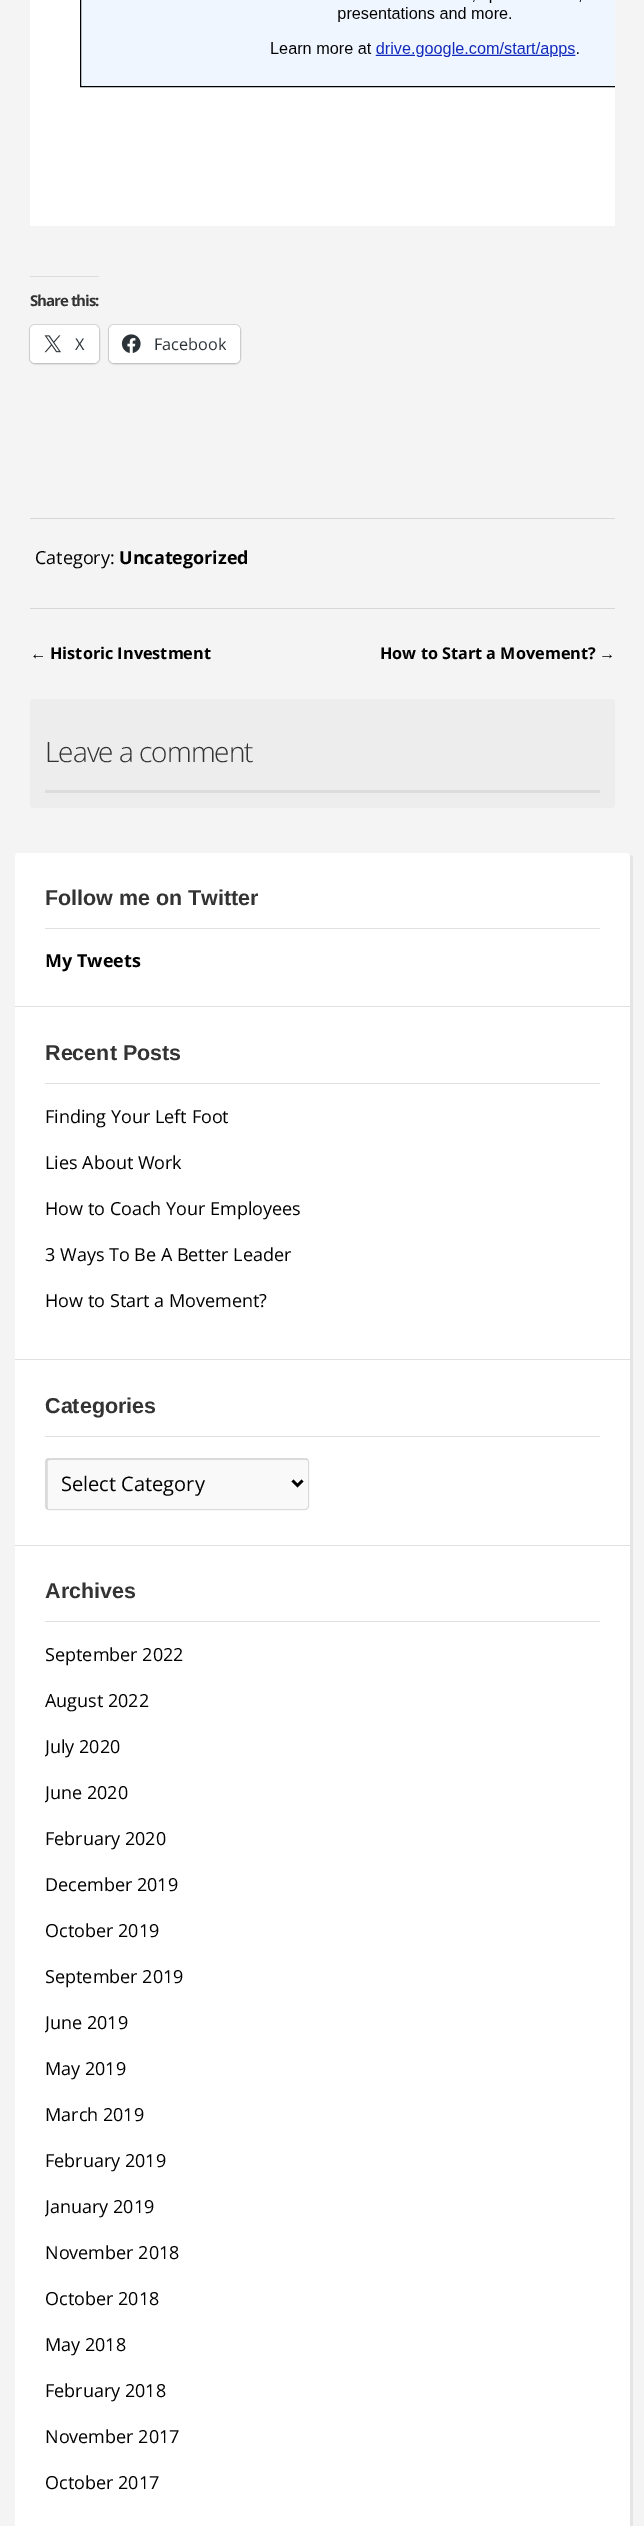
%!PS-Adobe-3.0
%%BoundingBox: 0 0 644 2526
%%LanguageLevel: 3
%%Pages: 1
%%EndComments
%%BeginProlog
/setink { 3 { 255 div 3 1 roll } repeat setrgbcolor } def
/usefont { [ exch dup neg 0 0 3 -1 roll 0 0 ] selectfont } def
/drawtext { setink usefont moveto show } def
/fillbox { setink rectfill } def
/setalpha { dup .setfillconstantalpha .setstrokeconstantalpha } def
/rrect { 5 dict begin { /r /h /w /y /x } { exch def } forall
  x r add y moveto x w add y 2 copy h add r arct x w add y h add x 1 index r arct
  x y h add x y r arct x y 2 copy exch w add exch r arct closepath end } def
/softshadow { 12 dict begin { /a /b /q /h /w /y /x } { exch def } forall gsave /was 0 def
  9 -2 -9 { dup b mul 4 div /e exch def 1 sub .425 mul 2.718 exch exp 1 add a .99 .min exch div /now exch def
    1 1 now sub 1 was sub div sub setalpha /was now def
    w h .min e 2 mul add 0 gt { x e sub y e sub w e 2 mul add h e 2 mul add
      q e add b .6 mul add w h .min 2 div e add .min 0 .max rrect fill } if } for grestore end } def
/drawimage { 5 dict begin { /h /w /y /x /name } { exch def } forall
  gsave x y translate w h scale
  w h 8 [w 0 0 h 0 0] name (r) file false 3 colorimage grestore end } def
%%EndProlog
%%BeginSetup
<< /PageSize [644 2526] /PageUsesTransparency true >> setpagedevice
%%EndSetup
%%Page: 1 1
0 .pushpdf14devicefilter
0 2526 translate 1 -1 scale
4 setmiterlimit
0 0 644 2526 244 244 244 fillbox
(assets/img1.rgb) 30 0 585 226 drawimage
30 276 69 1 220 220 222 fillbox
/OpenSans-Bold 15 usefont
51 51 51 setink
30 306 moveto -1 0 (Share this:) ashow
215 215 215 setink
29.5 324.5 70 39 5.5 rrect stroke
0 0 0 setink
30 326 69 38 5 1 0.12 softshadow
255 255 255 setink
30 325 69 38 5 rrect fill
(assets/img2.rgb) 44 335 17 18 drawimage
(X) 75 350 /OpenSans-Regular 16.25 44 51 56 drawtext
215 215 215 setink
108.5 324.5 132 39 5.5 rrect stroke
0 0 0 setink
109 326 131 38 5 1 0.12 softshadow
255 255 255 setink
109 325 131 38 5 rrect fill
(assets/img3.rgb) 121 334 20 19 drawimage
(Facebook) 154 350 /OpenSans-Regular 16.25 44 51 56 drawtext
30 518 585 1 215 215 215 fillbox
30 608 585 1 215 215 215 fillbox
(Category:) 35 564 /OpenSans-Regular 18 0 0 0 drawtext
(Uncategorized) 119 564 /OpenSans-Bold 18 0 0 0 drawtext
(←) 30 659 /LiberationSans-Regular 16.25 0 0 0 drawtext
(Historic Investment) 50 659 /OpenSans-Bold 16.25 0 0 0 drawtext
(How to Start a Movement?) 380 659 /OpenSans-Bold 16.25 0 0 0 drawtext
(→) 599 659 /LiberationSans-Regular 16.25 0 0 0 drawtext
237 237 237 setink
30 699 585 109 4 rrect fill
/OpenSans-Light 28 usefont
51 51 51 setink
45 762 moveto -1 0 (Leave a comment) ashow
45 790 555 3 220 220 222 fillbox
229 229 229 setink
18 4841 moveto 19 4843 20 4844 22 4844 curveto 629 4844 lineto 631 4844 633 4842 633 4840 curveto 633 859 lineto 633 857 632 855 630 855 curveto 630 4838 lineto 630 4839 629 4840 628 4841 curveto 626 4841 lineto closepath fill
255 255 255 setink
15 853 615 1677 4 rrect fill
15 1006 615 1 224 224 224 fillbox
45 928 555 1 224 224 224 fillbox
(Follow me on Twitter) 45 905 /LiberationSans-Bold 21.5 51 51 51 drawtext
(My Tweets) 45 967 /OpenSans-Bold 18 0 0 0 drawtext
15 1359 615 1 224 224 224 fillbox
45 1083 555 1 224 224 224 fillbox
(Recent Posts) 45 1060 /LiberationSans-Bold 21.5 51 51 51 drawtext
(Finding Your Left Foot) 45 1123 /OpenSans-Regular 18 0 0 0 drawtext
(Lies About Work) 45 1169 /OpenSans-Regular 18 0 0 0 drawtext
(How to Coach Your Employees) 45 1215 /OpenSans-Regular 18 0 0 0 drawtext
(3 Ways To Be A Better Leader) 45 1261 /OpenSans-Regular 18 0 0 0 drawtext
(How to Start a Movement?) 45 1307 /OpenSans-Regular 18 0 0 0 drawtext
15 1545 615 1 224 224 224 fillbox
45 1436 555 1 224 224 224 fillbox
(Categories) 45 1413 /LiberationSans-Bold 21.5 51 51 51 drawtext
249 249 249 setink
45 1458 264 52 4 rrect fill
224 224 224 setink
50 1460 moveto 308 1460 lineto 307 1460 306 1459 306 1459 curveto 48 1459 lineto 47 1459 46 1460 46 1462 curveto 46 1506 lineto 46 1508 47 1509 48 1509 curveto 48 1461 lineto closepath fill
0.12 setalpha
0 0 0 setink
45.5 1458.5 263 51 3.5 rrect stroke
1 setalpha
2.5 setlinewidth
292.5 1480.5 moveto 297.5 1485.5 lineto 302.5 1480.5 lineto stroke
(Select Category) 61 1491 /OpenSans-Regular 20 0 0 0 drawtext
45 1621 555 1 224 224 224 fillbox
(Archives) 45 1598 /LiberationSans-Bold 21.5 51 51 51 drawtext
(September 2022) 45 1661 /OpenSans-Regular 18 0 0 0 drawtext
(August 2022) 45 1707 /OpenSans-Regular 18 0 0 0 drawtext
gsave
45 1729 555 36 rectclip
(July 2020) 45 1753 /OpenSans-Regular 18 0 0 0 drawtext
grestore
gsave
45 1775 555 36 rectclip
(June 2020) 45 1799 /OpenSans-Regular 18 0 0 0 drawtext
grestore
(February 2020) 45 1845 /OpenSans-Regular 18 0 0 0 drawtext
(December 2019) 45 1891 /OpenSans-Regular 18 0 0 0 drawtext
(October 2019) 45 1937 /OpenSans-Regular 18 0 0 0 drawtext
(September 2019) 45 1983 /OpenSans-Regular 18 0 0 0 drawtext
gsave
45 2005 555 36 rectclip
(June 2019) 45 2029 /OpenSans-Regular 18 0 0 0 drawtext
grestore
(May 2019) 45 2075 /OpenSans-Regular 18 0 0 0 drawtext
(March 2019) 45 2121 /OpenSans-Regular 18 0 0 0 drawtext
(February 2019) 45 2167 /OpenSans-Regular 18 0 0 0 drawtext
gsave
45 2190 555 35 rectclip
(January 2019) 45 2213 /OpenSans-Regular 18 0 0 0 drawtext
grestore
(November 2018) 45 2259 /OpenSans-Regular 18 0 0 0 drawtext
(October 2018) 45 2305 /OpenSans-Regular 18 0 0 0 drawtext
(May 2018) 45 2351 /OpenSans-Regular 18 0 0 0 drawtext
(February 2018) 45 2397 /OpenSans-Regular 18 0 0 0 drawtext
(November 2017) 45 2443 /OpenSans-Regular 18 0 0 0 drawtext
(October 2017) 45 2489 /OpenSans-Regular 18 0 0 0 drawtext
.poppdf14devicefilter showpage
%%EOF
